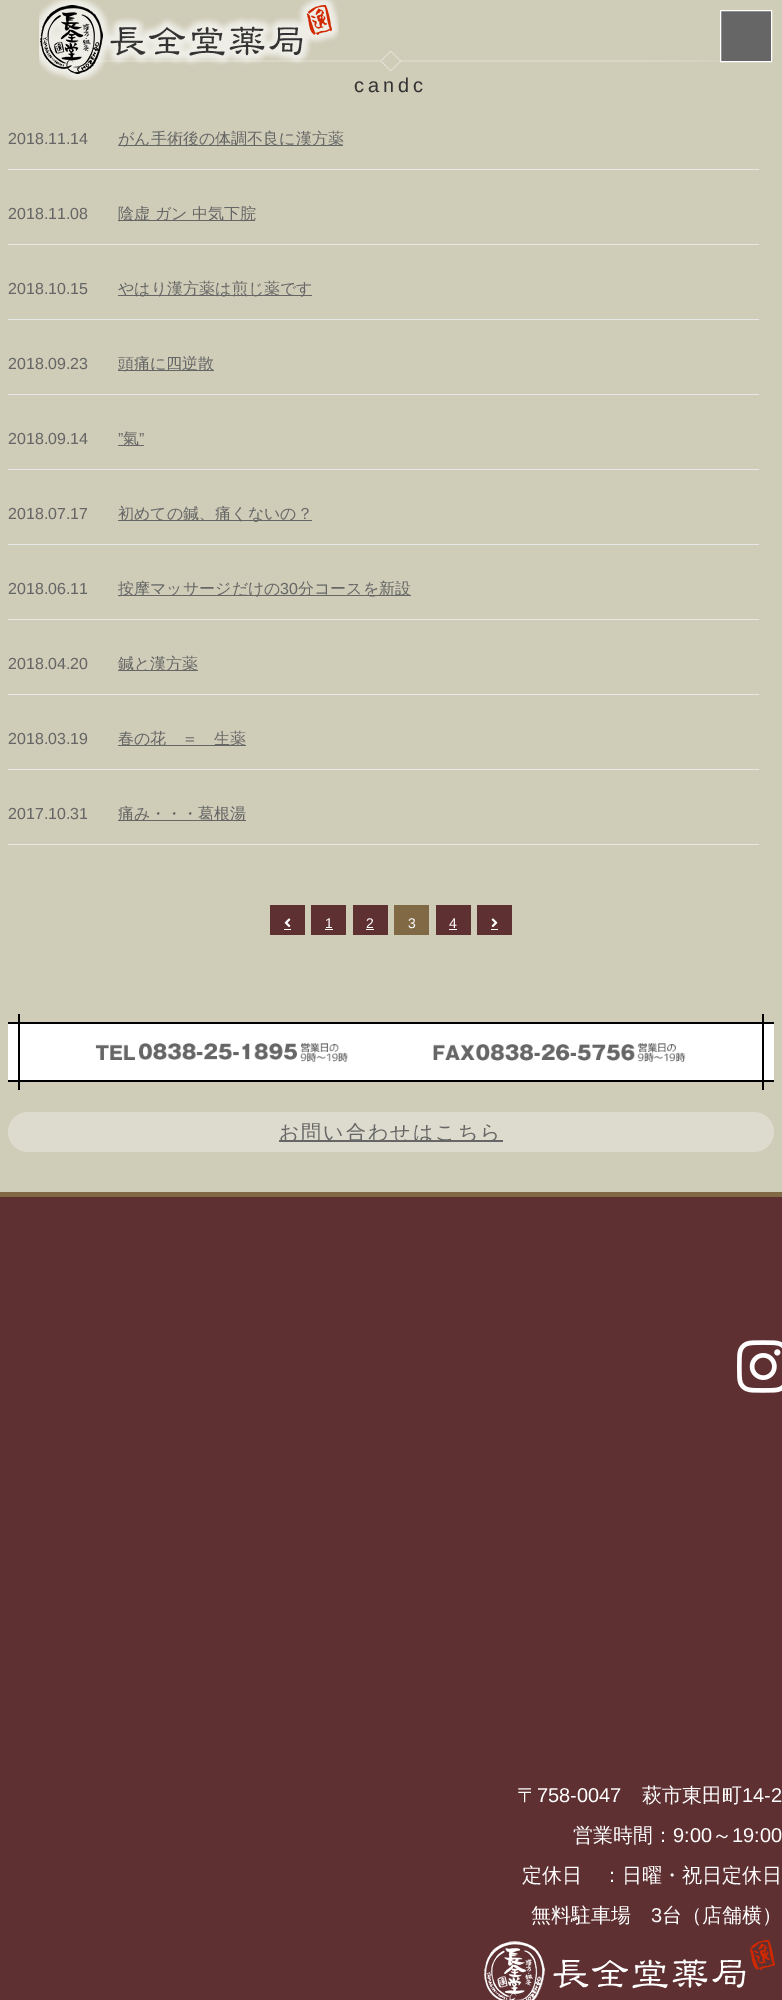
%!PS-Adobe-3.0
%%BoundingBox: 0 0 782 2000
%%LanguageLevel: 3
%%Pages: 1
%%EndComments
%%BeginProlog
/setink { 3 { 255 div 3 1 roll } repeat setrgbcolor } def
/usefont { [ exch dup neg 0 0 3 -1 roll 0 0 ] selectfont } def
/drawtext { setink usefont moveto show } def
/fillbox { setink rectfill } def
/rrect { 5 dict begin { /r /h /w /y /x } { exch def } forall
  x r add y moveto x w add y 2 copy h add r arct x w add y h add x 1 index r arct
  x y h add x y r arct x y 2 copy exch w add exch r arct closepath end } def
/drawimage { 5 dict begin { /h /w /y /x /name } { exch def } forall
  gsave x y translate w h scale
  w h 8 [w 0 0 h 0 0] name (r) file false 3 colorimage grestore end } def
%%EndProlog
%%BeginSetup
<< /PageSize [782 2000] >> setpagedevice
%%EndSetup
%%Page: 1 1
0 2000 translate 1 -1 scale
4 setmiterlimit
0 0 782 2000 207 204 184 fillbox
(assets/img2.rgb) 47 51 673 21 drawimage
(assets/img1.rgb) 39 0 300 80 drawimage
102 102 102 setink
720.5 10.5 moveto 771.5 10.5 lineto 771.5 61.5 lineto 720.5 61.5 lineto closepath gsave fill grestore
255 255 255 setink
stroke
/LiberationSans-Regular 20 usefont
51 51 51 setink
354 92 moveto 4 0 (candc) ashow
8 169 751 1 231 231 231 fillbox
(2018.11.14) 8 144 /LiberationSans-Regular 16 102 102 102 drawtext
118 145 225 1 102 102 102 fillbox
(がん手術後の体調不良に漢方薬) 118 144 /WenQuanYiZenHei-Medium 16 102 102 102 drawtext
8 244 751 1 231 231 231 fillbox
(2018.11.08) 8 219 /LiberationSans-Regular 16 102 102 102 drawtext
118 220 137 1 102 102 102 fillbox
(陰虚 ガン 中気下脘) 118 219 /WenQuanYiZenHei-Medium 16 102 102 102 drawtext
8 319 751 1 231 231 231 fillbox
(2018.10.15) 8 294 /LiberationSans-Regular 16 102 102 102 drawtext
118 295 194 1 102 102 102 fillbox
(やはり漢方薬は煎じ薬です) 118 294 /WenQuanYiZenHei-Medium 16 102 102 102 drawtext
8 394 751 1 231 231 231 fillbox
(2018.09.23) 8 369 /LiberationSans-Regular 16 102 102 102 drawtext
118 370 96 1 102 102 102 fillbox
(頭痛に四逆散) 118 369 /WenQuanYiZenHei-Medium 16 102 102 102 drawtext
8 469 751 1 231 231 231 fillbox
(2018.09.14) 8 444 /LiberationSans-Regular 16 102 102 102 drawtext
(”) 118 444 /LiberationSans-Regular 16 102 102 102 drawtext
118 445 26 1 102 102 102 fillbox
(氣) 123 444 /WenQuanYiZenHei-Medium 16 102 102 102 drawtext
(”) 139 444 /LiberationSans-Regular 16 102 102 102 drawtext
8 544 751 1 231 231 231 fillbox
(2018.07.17) 8 519 /LiberationSans-Regular 16 102 102 102 drawtext
118 520 194 1 102 102 102 fillbox
(初めての鍼、痛くないの？) 118 519 /WenQuanYiZenHei-Medium 16 102 102 102 drawtext
8 619 751 1 231 231 231 fillbox
(2018.06.11) 8 594 /LiberationSans-Regular 16 102 102 102 drawtext
118 595 293 1 102 102 102 fillbox
(按摩マッサージだけの) 118 594 /WenQuanYiZenHei-Medium 16 102 102 102 drawtext
(30) 280 594 /LiberationSans-Regular 16 102 102 102 drawtext
(分コースを新設) 298 594 /WenQuanYiZenHei-Medium 16 102 102 102 drawtext
8 694 751 1 231 231 231 fillbox
(2018.04.20) 8 669 /LiberationSans-Regular 16 102 102 102 drawtext
118 670 80 1 102 102 102 fillbox
(鍼と漢方薬) 118 669 /WenQuanYiZenHei-Medium 16 102 102 102 drawtext
8 769 751 1 231 231 231 fillbox
(2018.03.19) 8 744 /LiberationSans-Regular 16 102 102 102 drawtext
118 745 128 1 102 102 102 fillbox
(春の花　＝　生薬) 118 744 /WenQuanYiZenHei-Medium 16 102 102 102 drawtext
8 844 751 1 231 231 231 fillbox
(2017.10.31) 8 819 /LiberationSans-Regular 16 102 102 102 drawtext
118 820 128 1 102 102 102 fillbox
(痛み・・・葛根湯) 118 819 /WenQuanYiZenHei-Medium 16 102 102 102 drawtext
270 905 35 30 94 48 50 fillbox
(assets/img3.rgb) 284 918 7 10 drawimage
284 929 7 1 255 255 255 fillbox
311 905 35 30 94 48 50 fillbox
(1) 325 928 /LiberationSans-Regular 14 255 255 255 drawtext
325 929 8 1 255 255 255 fillbox
353 905 35 30 94 48 50 fillbox
(2) 366 928 /LiberationSans-Regular 14 255 255 255 drawtext
366 929 8 1 255 255 255 fillbox
394 905 35 30 129 105 69 fillbox
(3) 408 928 /LiberationSans-Regular 14 255 255 255 drawtext
436 905 35 30 94 48 50 fillbox
(4) 449 928 /LiberationSans-Regular 14 255 255 255 drawtext
449 929 8 1 255 255 255 fillbox
477 905 35 30 94 48 50 fillbox
(assets/img4.rgb) 491 918 7 10 drawimage
491 929 7 1 255 255 255 fillbox
8 1024 766 56 255 255 255 fillbox
8 1022 766 2 0 0 0 fillbox
8 1080 766 2 0 0 0 fillbox
18 1014 2 76 0 0 0 fillbox
(assets/img5.rgb) 95 1042 591 20 drawimage
762 1014 2 76 0 0 0 fillbox
221 219 205 setink
8 1112 766 40 20 rrect fill
279 1140 224 2 102 102 102 fillbox
/WenQuanYiZenHei-Medium 20 usefont
279 1139 moveto 2 0 (お問い合わせはこちら) ashow
0 1197 782 803 94 48 50 fillbox
0 1192 782 5 129 105 69 fillbox
(assets/img6.rgb) 737 1340 45 53 drawimage
(〒) 517 1802 /WenQuanYiZenHei-Medium 20 255 255 255 drawtext
(758-0047) 537 1802 /LiberationSans-Regular 20 255 255 255 drawtext
(萩市東田町) 642 1802 /WenQuanYiZenHei-Medium 20 255 255 255 drawtext
(14-2) 742 1802 /LiberationSans-Regular 20 255 255 255 drawtext
(営業時間：) 573 1842 /WenQuanYiZenHei-Medium 20 255 255 255 drawtext
(9:00) 673 1842 /LiberationSans-Regular 20 255 255 255 drawtext
(～) 712 1842 /WenQuanYiZenHei-Medium 20 255 255 255 drawtext
(19:00) 732 1842 /LiberationSans-Regular 20 255 255 255 drawtext
(定休日　：日曜・祝日定休日) 522 1882 /WenQuanYiZenHei-Medium 20 255 255 255 drawtext
(無料駐車場) 531 1922 /WenQuanYiZenHei-Medium 20 255 255 255 drawtext
(3) 651 1922 /LiberationSans-Regular 20 255 255 255 drawtext
(台（店舗横）) 662 1922 /WenQuanYiZenHei-Medium 20 255 255 255 drawtext
(assets/img7.rgb) 484 1940 291 60 drawimage
showpage
%%EOF
